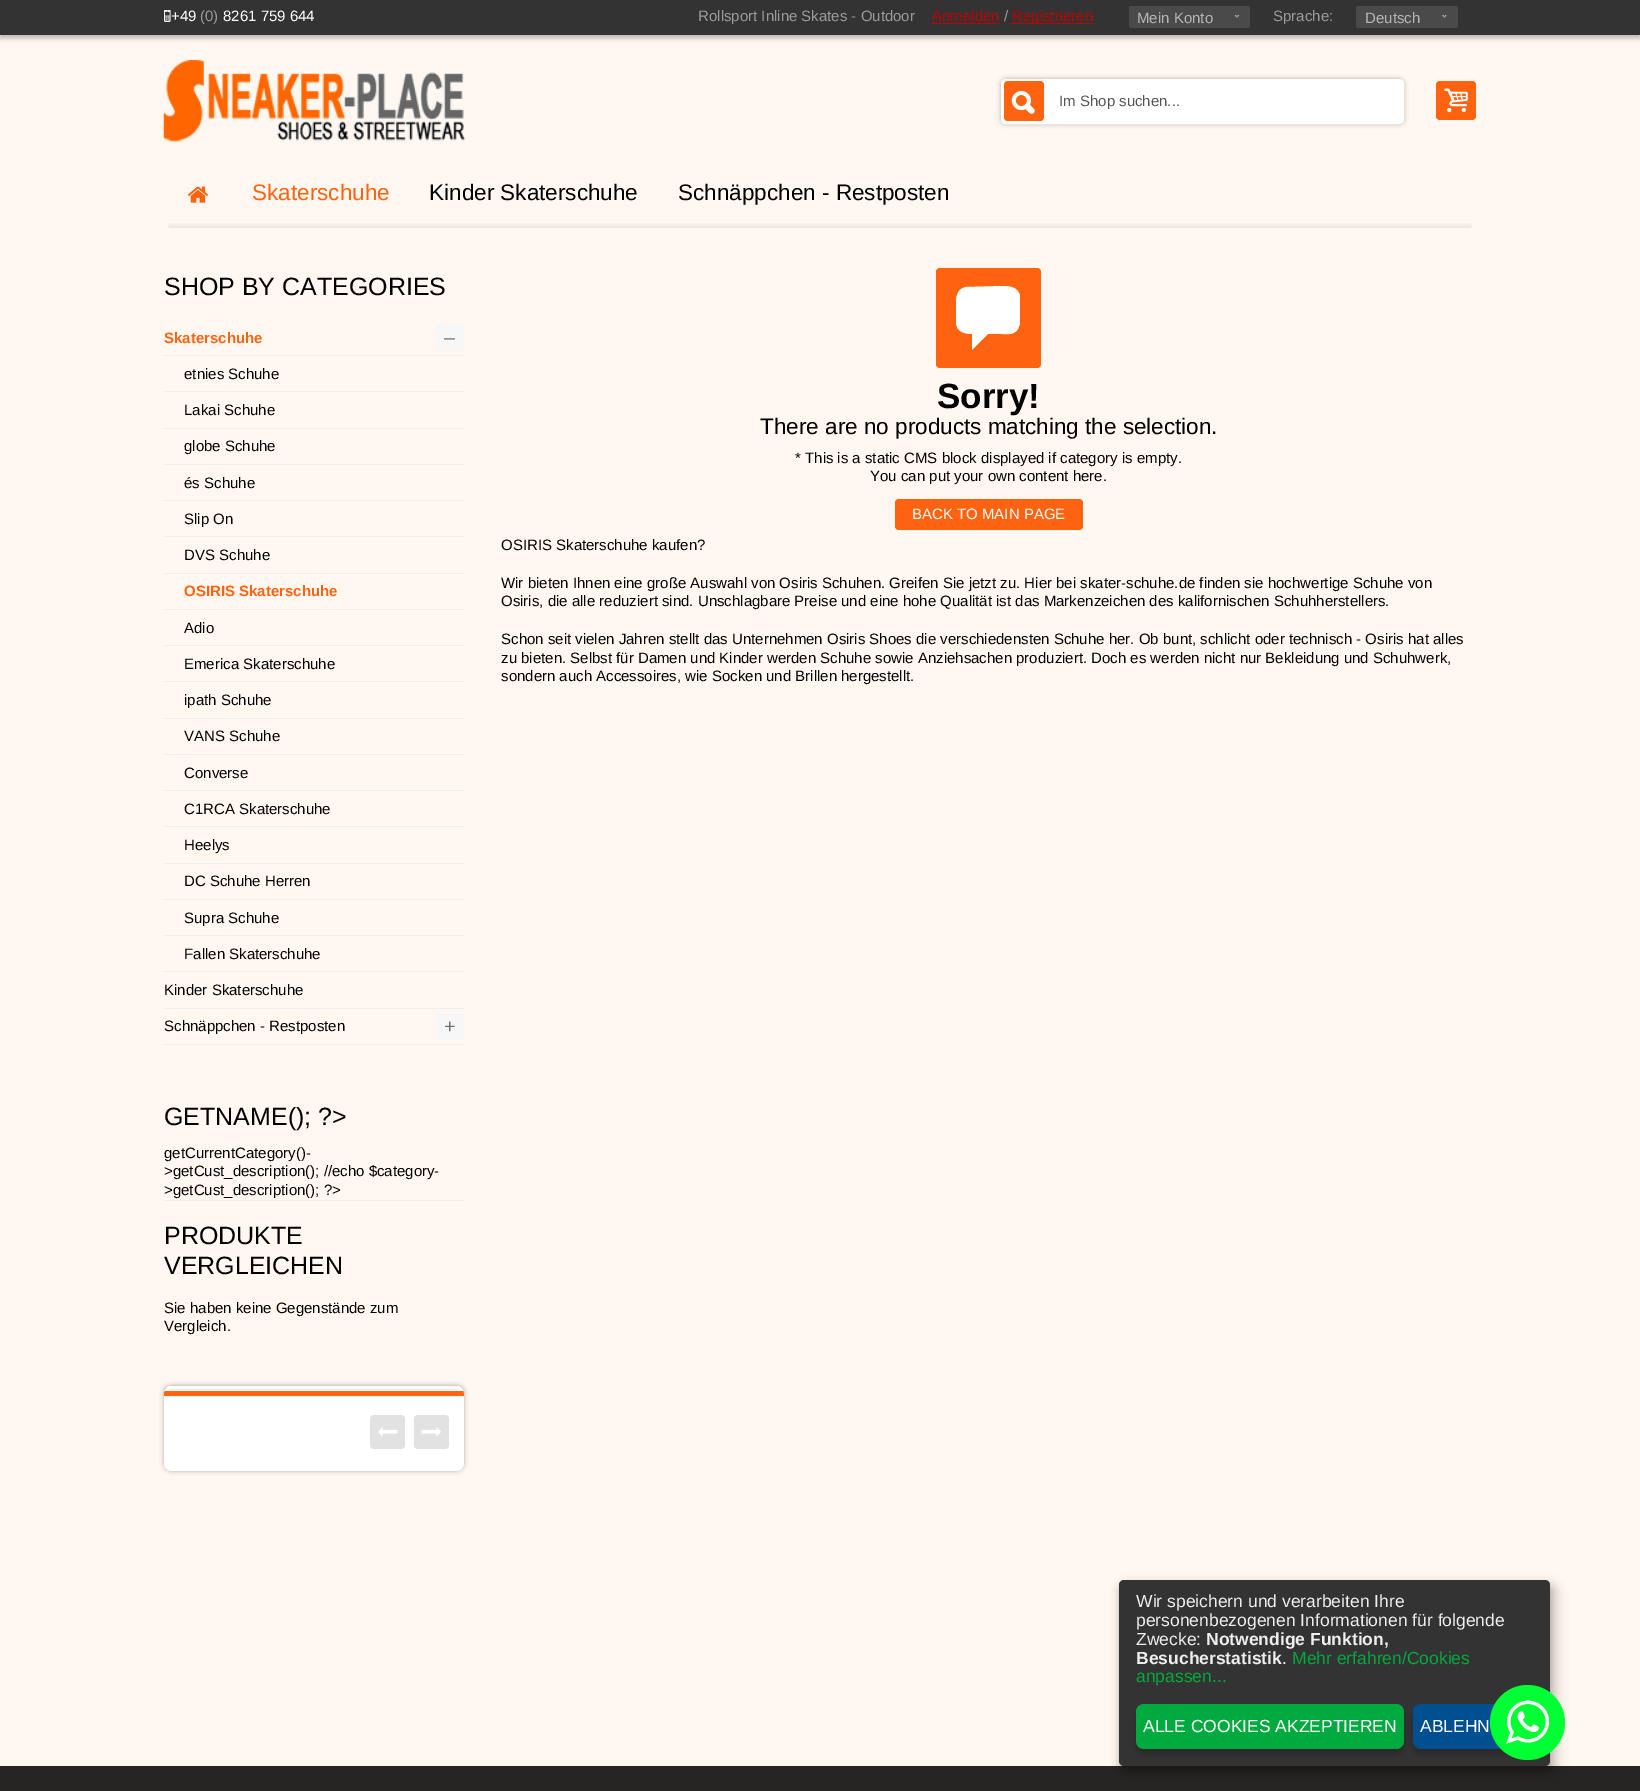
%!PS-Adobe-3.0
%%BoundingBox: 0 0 1640 1791
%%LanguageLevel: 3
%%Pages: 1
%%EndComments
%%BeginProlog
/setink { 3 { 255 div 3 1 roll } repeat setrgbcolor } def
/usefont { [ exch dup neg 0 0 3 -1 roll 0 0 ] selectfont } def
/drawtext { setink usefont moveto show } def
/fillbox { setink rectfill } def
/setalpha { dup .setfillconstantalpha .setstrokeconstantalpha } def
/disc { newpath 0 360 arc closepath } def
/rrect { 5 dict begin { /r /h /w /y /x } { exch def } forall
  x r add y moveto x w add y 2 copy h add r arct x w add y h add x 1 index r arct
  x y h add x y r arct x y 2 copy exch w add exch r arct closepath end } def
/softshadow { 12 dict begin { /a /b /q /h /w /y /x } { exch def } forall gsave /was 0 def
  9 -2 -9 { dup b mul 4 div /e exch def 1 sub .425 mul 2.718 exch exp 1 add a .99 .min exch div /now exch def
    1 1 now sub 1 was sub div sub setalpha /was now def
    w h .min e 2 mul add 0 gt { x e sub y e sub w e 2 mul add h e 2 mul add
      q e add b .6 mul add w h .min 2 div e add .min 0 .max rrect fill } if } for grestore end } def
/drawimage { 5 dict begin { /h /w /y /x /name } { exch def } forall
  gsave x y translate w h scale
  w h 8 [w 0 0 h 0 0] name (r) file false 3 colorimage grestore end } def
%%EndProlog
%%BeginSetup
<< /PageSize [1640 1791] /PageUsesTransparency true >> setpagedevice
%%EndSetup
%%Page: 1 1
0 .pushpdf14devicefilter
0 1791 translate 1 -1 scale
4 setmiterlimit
0 0 1640 1791 255 247 240 fillbox
0 0 0 setink
0 3 1640 35 0 2.5 0.27 softshadow
0 0 1640 35 51 51 51 fillbox
(assets/img1.rgb) 164 10 7 12 drawimage
(+49) 171 21 /LiberationSans-Regular 15 255 255 255 drawtext
(\(0\)) 200 21 /LiberationSans-Regular 15 155 155 155 drawtext
(8261 759 644) 223 21 /LiberationSans-Regular 15 255 255 255 drawtext
(Rollsport Inline Skates - Outdoor) 698 21 /LiberationSans-Regular 15 155 155 155 drawtext
(Anmelden) 932 21 /LiberationSans-Regular 15 191 0 0 drawtext
931 23 68 1 191 0 0 fillbox
(/) 1004 21 /LiberationSans-Regular 15 155 155 155 drawtext
1011 23 82 1 191 0 0 fillbox
(Registrieren) 1012 21 /LiberationSans-Regular 15 191 0 0 drawtext
74 74 74 setink
1129 6 121 22 2.5 rrect fill
(assets/img2.rgb) 1234 14 5 4 drawimage
(Mein Konto) 1137 23 /LiberationSans-Regular 15 182 182 182 drawtext
(Sprache:) 1273 21 /LiberationSans-Regular 15 155 155 155 drawtext
74 74 74 setink
1356 6 102 22 2.5 rrect fill
(assets/img3.rgb) 1442 14 5 4 drawimage
(Deutsch) 1365 23 /LiberationSans-Regular 15 182 182 182 drawtext
(assets/img4.rgb) 163 60 303 82 drawimage
0 0 0 setink
1001 79 403 45 5 2.5 0.27 softshadow
255 255 255 setink
1002.5 80.5 400 42 3.5 rrect gsave fill grestore
3 setlinewidth
stroke
255 99 16 setink
1004 81 40 40 4 rrect fill
(assets/img5.rgb) 1011 90 24 24 drawimage
(Im Shop suchen...) 1059 106 /LiberationSans-Regular 15 85 85 85 drawtext
255 99 16 setink
1436 81 40 39 4 rrect fill
(assets/img6.rgb) 1444 88 24 25 drawimage
(assets/img7.rgb) 187 186 21 17 drawimage
(Skaterschuhe) 252 200 /LiberationSans-Regular 22.5 255 99 16 drawtext
(Kinder Skaterschuhe) 429 200 /LiberationSans-Regular 22.5 0 0 0 drawtext
(Schnäppchen - Restposten) 678 200 /LiberationSans-Regular 22.5 0 0 0 drawtext
gsave
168 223 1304 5 rectclip
169 226 1302 1247 0 3 0.1 softshadow
grestore
(SHOP BY CATEGORIES) 164 295 /LiberationSans-Regular 25 0 0 0 drawtext
164 971 300 1 238 238 238 fillbox
(Skaterschuhe) 164 343 /LiberationSans-Bold 15 255 99 16 drawtext
247 247 247 setink
436 324 28 27 2.5 rrect fill
(–) 444 344 /LiberationSans-Regular 20 113 113 113 drawtext
164 355 300 1 238 238 238 fillbox
164 391 300 1 238 238 238 fillbox
(etnies Schuhe) 184 379 /LiberationSans-Regular 15 0 0 0 drawtext
164 428 300 1 238 238 238 fillbox
(Lakai Schuhe) 184 415 /LiberationSans-Regular 15 0 0 0 drawtext
164 464 300 1 238 238 238 fillbox
(globe Schuhe) 184 451 /LiberationSans-Regular 15 0 0 0 drawtext
164 500 300 1 238 238 238 fillbox
(és Schuhe) 184 488 /LiberationSans-Regular 15 0 0 0 drawtext
164 536 300 1 238 238 238 fillbox
(Slip On) 184 524 /LiberationSans-Regular 15 0 0 0 drawtext
164 573 300 1 238 238 238 fillbox
(DVS Schuhe) 184 560 /LiberationSans-Regular 15 0 0 0 drawtext
164 609 300 1 238 238 238 fillbox
(OSIRIS Skaterschuhe) 184 596 /LiberationSans-Bold 15 255 99 16 drawtext
164 645 300 1 238 238 238 fillbox
(Adio) 184 633 /LiberationSans-Regular 15 0 0 0 drawtext
164 681 300 1 238 238 238 fillbox
(Emerica Skaterschuhe) 184 669 /LiberationSans-Regular 15 0 0 0 drawtext
164 718 300 1 238 238 238 fillbox
(ipath Schuhe) 184 705 /LiberationSans-Regular 15 0 0 0 drawtext
164 754 300 1 238 238 238 fillbox
(VANS Schuhe) 184 741 /LiberationSans-Regular 15 0 0 0 drawtext
164 790 300 1 238 238 238 fillbox
(Converse) 184 778 /LiberationSans-Regular 15 0 0 0 drawtext
164 826 300 1 238 238 238 fillbox
(C1RCA Skaterschuhe) 184 814 /LiberationSans-Regular 15 0 0 0 drawtext
164 863 300 1 238 238 238 fillbox
(Heelys) 184 850 /LiberationSans-Regular 15 0 0 0 drawtext
164 899 300 1 238 238 238 fillbox
(DC Schuhe Herren) 184 886 /LiberationSans-Regular 15 0 0 0 drawtext
164 935 300 1 238 238 238 fillbox
(Supra Schuhe) 184 923 /LiberationSans-Regular 15 0 0 0 drawtext
(Fallen Skaterschuhe) 184 959 /LiberationSans-Regular 15 0 0 0 drawtext
164 1008 300 1 238 238 238 fillbox
(Kinder Skaterschuhe) 164 995 /LiberationSans-Regular 15 0 0 0 drawtext
164 1044 300 1 238 238 238 fillbox
(Schnäppchen - Restposten) 164 1031 /LiberationSans-Regular 15 0 0 0 drawtext
247 247 247 setink
436 1013 28 27 2.5 rrect fill
(+) 444 1033 /LiberationSans-Regular 20 113 113 113 drawtext
164 1200 300 1 238 238 238 fillbox
(GETNAME\(\); ?>) 164 1125 /LiberationSans-Regular 25 0 0 0 drawtext
(getCurrentCategory\(\)-) 164 1158 /LiberationSans-Regular 15 0 0 0 drawtext
(>getCust_description\(\); //echo $category-) 164 1176 /LiberationSans-Regular 15 0 0 0 drawtext
(>getCust_description\(\); ?>) 164 1195 /LiberationSans-Regular 15 0 0 0 drawtext
(PRODUKTE) 164 1244 /LiberationSans-Regular 25 0 0 0 drawtext
(VERGLEICHEN) 164 1274 /LiberationSans-Regular 25 0 0 0 drawtext
(Sie haben keine Gegenstände zum) 164 1313 /LiberationSans-Regular 15 0 0 0 drawtext
(Vergleich.) 164 1331 /LiberationSans-Regular 15 0 0 0 drawtext
164 1386 300 85 8 2.5 0.27 softshadow
255 255 255 setink
164 1386 300 85 8 rrect fill
0 0 0 setink
164 1386 300 10 8 2 0.1 softshadow
255 255 255 setink
458 1386 moveto 169 1386 lineto 167 1387 166 1388 165 1390 curveto 164 1390 lineto 164 1391 lineto 165 1390 lineto 167 1390 lineto 165 1391 lineto 463 1391 lineto 461 1390 lineto 463 1390 lineto 464 1391 lineto 464 1390 lineto 463 1390 lineto 462 1388 460 1387 458 1386 curveto closepath 171 1389 moveto 456 1389 lineto 461 1390 lineto 167 1390 lineto closepath eofill
255 99 16 setink
164 1391 moveto 164 1396 lineto 464 1396 lineto 464 1394 464 1393 463 1391 curveto 165 1391 lineto 164 1393 lineto closepath 463 1391 moveto 464 1392 lineto closepath eofill
226 226 226 setink
370 1415 35 34 4 rrect fill
(assets/img8.rgb) 378 1427 20 10 drawimage
414 1415 35 34 4 rrect fill
(assets/img9.rgb) 421 1427 20 10 drawimage
255 99 16 setink
936 268 105 100 4 rrect fill
255 255 255 setink
956 322 moveto 956 306 lineto 956 298 956 289 966 287 curveto 1002 286 lineto 1010 286 1018 287 1020 296 curveto 1020 324 lineto 1018 329 lineto 1014 335 1009 334 1002 334 curveto 988 334 lineto 972 350 lineto 972 334 lineto 962 334 956 330 956 322 curveto closepath fill
(Sorry!) 937 408 /LiberationSans-Bold 35 0 0 0 drawtext
(There are no products matching the selection.) 760 434 /LiberationSans-Regular 22.5 0 0 0 drawtext
(* This is a static CMS block displayed if category is empty.) 795 463 /LiberationSans-Regular 15 0 0 0 drawtext
(You can put your own content here.) 870 481 /LiberationSans-Regular 15 0 0 0 drawtext
255 99 16 setink
895 499 188 31 4 rrect fill
(BACK TO MAIN PAGE) 912 519 /LiberationSans-Regular 15 255 255 255 drawtext
(OSIRIS Skaterschuhe kaufen?) 501 550 /LiberationSans-Regular 15 0 0 0 drawtext
(Wir bieten Ihnen eine große Auswahl von Osiris Schuhen. Greifen Sie jetzt zu. Hier bei skater-schuhe.de finden sie hochwertige Schuhe von) 501 588 /LiberationSans-Regular 15 0 0 0 drawtext
(Osiris, die alle reduziert sind. Unschlagbare Preise und eine hohe Qualität ist das Markenzeichen des kalifornischen Schuhherstellers.) 501 606 /LiberationSans-Regular 15 0 0 0 drawtext
(Schon seit vielen Jahren stellt das Unternehmen Osiris Shoes die verschiedensten Schuhe her. Ob bunt, schlicht oder technisch - Osiris hat alles) 501 644 /LiberationSans-Regular 15 0 0 0 drawtext
(zu bieten. Selbst für Damen und Kinder werden Schuhe sowie Anziehsachen produziert. Doch es werden nicht nur Bekleidung und Schuhwerk,) 501 663 /LiberationSans-Regular 15 0 0 0 drawtext
(sondern auch Accessoires, wie Socken und Brillen hergestellt.) 501 681 /LiberationSans-Regular 15 0 0 0 drawtext
1125 1586 431 187 5 6 0.19 softshadow
1119 1585 431 186 5 4 0.2 softshadow
51 51 51 setink
1119 1580 431 186 5 rrect fill
(Wir speichern und verarbeiten Ihre) 1136 1607 /LiberationSans-Regular 17.5 238 238 238 drawtext
(personenbezogenen Informationen für folgende) 1136 1626 /LiberationSans-Regular 17.5 238 238 238 drawtext
(Zwecke:) 1136 1645 /LiberationSans-Regular 17.5 238 238 238 drawtext
(Notwendige Funktion,) 1206 1645 /LiberationSans-Bold 17.5 238 238 238 drawtext
(Besucherstatistik) 1136 1664 /LiberationSans-Bold 17.5 238 238 238 drawtext
(.) 1282 1664 /LiberationSans-Regular 17.5 238 238 238 drawtext
(Mehr erfahren/Cookies) 1292 1664 /LiberationSans-Regular 17.5 0 170 62 drawtext
(anpassen...) 1136 1682 /LiberationSans-Regular 17.5 0 170 62 drawtext
0 0 0 setink
1136 1709 268 45 8 4 0.2 softshadow
0 170 62 setink
1136 1704 268 45 8 rrect fill
(ALLE COOKIES AKZEPTIEREN) 1143 1732 /LiberationSans-Regular 17.5 255 255 255 drawtext
0 0 0 setink
1413 1709 108 45 8 4 0.2 softshadow
0 80 145 setink
1413 1704 108 45 8 rrect fill
(ABLEHN) 1420 1732 /LiberationSans-Regular 17.5 255 255 255 drawtext
0 255 51 setink
1527.5 1722.5 37.5 disc fill
(assets/img10.rgb) 1506 1700 44 44 drawimage
0.85 setalpha
0 1766 1640 25 0 0 0 fillbox
.poppdf14devicefilter showpage
%%EOF
